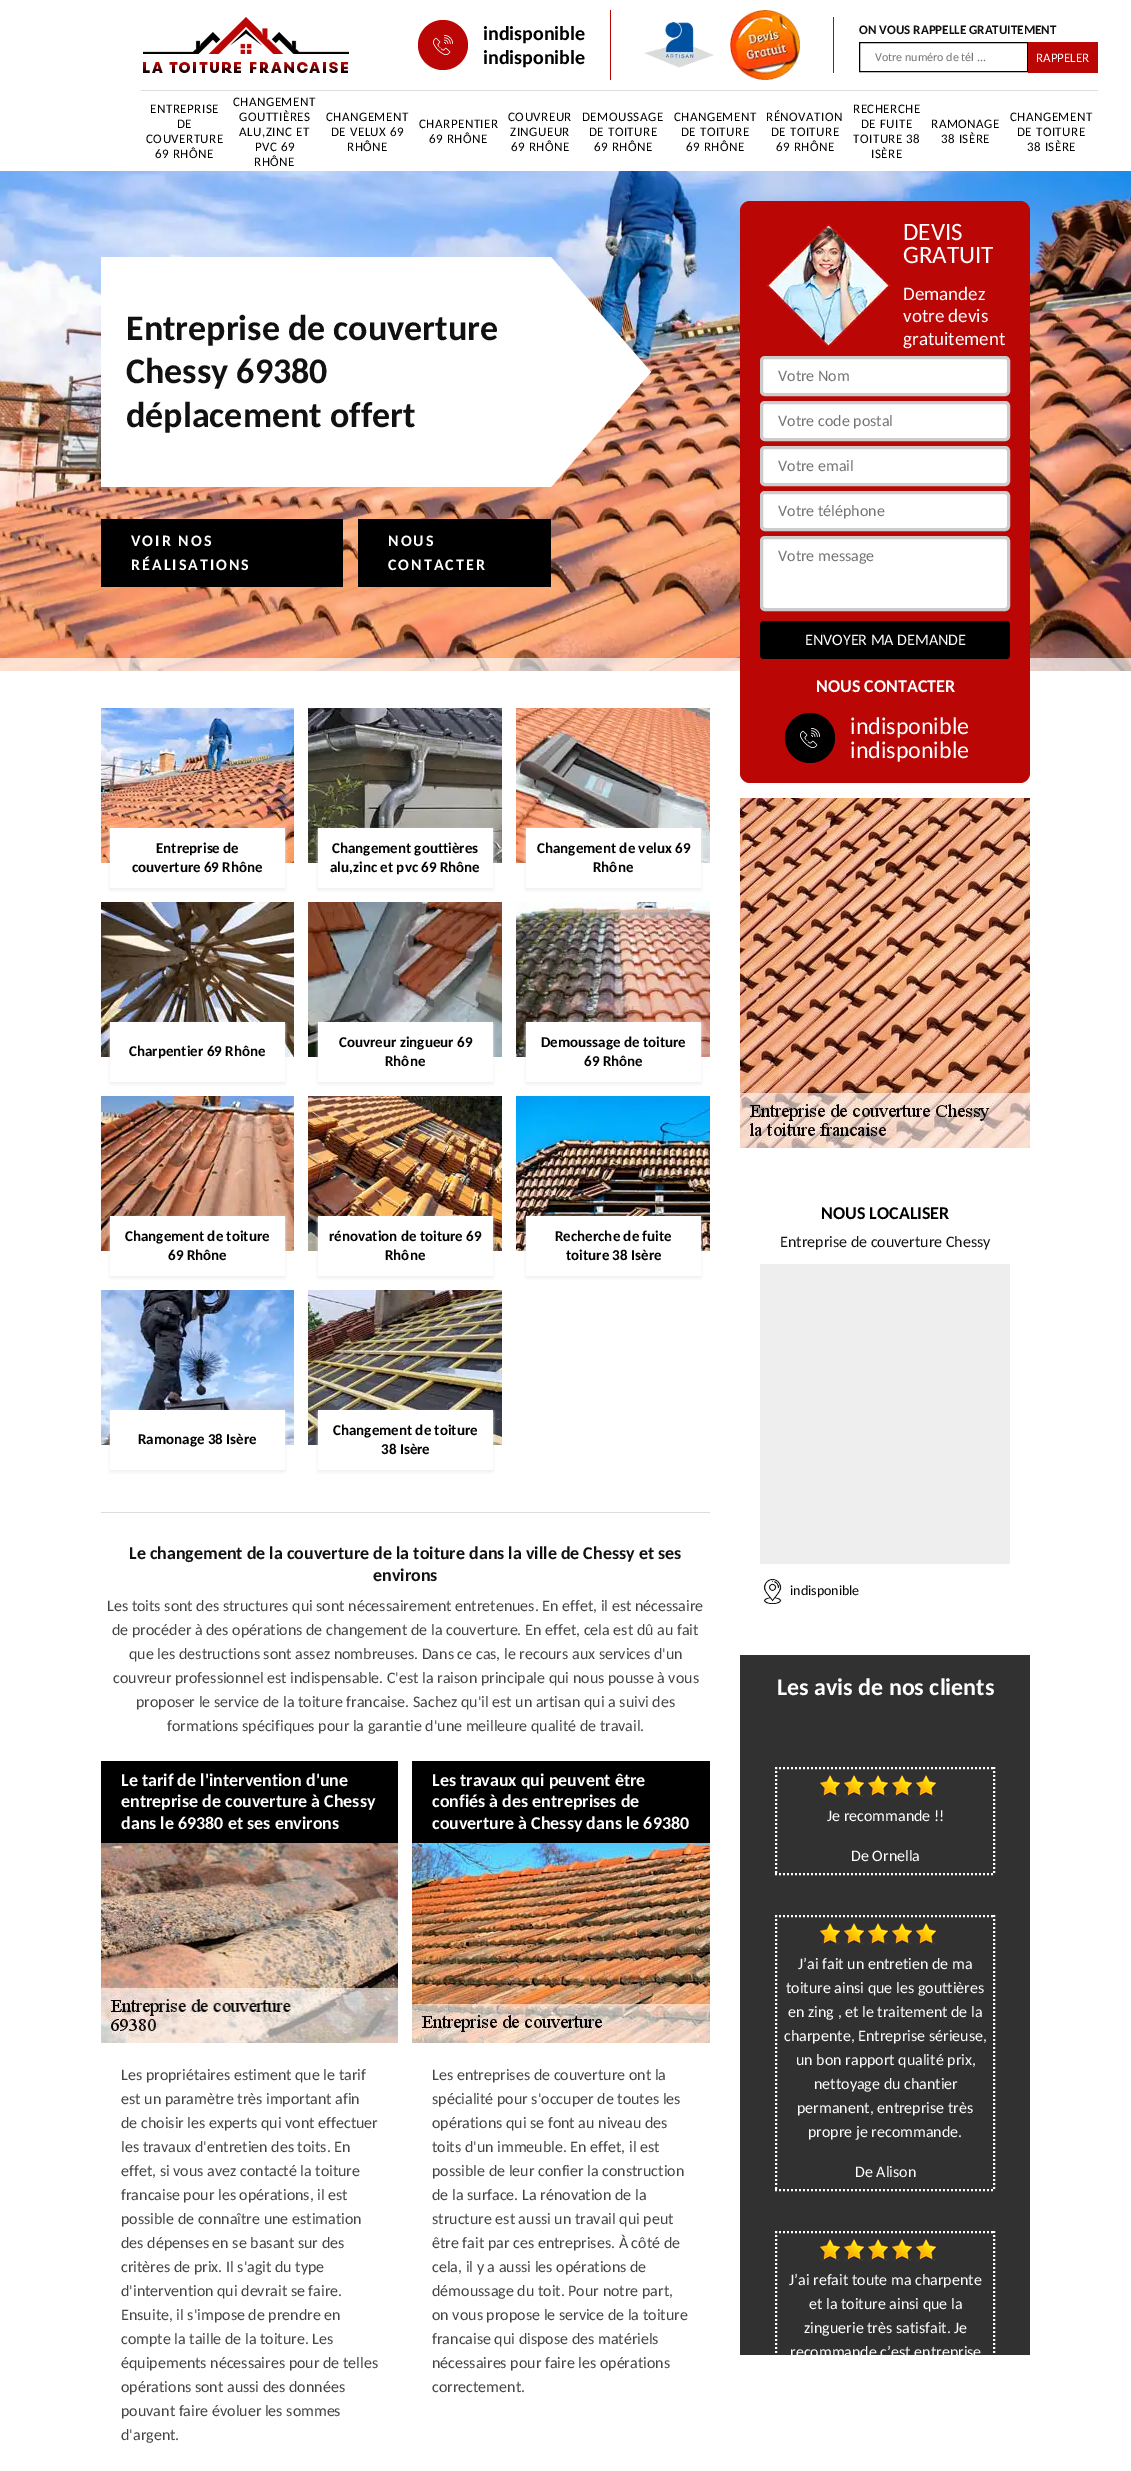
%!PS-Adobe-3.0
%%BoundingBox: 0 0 1131 2471
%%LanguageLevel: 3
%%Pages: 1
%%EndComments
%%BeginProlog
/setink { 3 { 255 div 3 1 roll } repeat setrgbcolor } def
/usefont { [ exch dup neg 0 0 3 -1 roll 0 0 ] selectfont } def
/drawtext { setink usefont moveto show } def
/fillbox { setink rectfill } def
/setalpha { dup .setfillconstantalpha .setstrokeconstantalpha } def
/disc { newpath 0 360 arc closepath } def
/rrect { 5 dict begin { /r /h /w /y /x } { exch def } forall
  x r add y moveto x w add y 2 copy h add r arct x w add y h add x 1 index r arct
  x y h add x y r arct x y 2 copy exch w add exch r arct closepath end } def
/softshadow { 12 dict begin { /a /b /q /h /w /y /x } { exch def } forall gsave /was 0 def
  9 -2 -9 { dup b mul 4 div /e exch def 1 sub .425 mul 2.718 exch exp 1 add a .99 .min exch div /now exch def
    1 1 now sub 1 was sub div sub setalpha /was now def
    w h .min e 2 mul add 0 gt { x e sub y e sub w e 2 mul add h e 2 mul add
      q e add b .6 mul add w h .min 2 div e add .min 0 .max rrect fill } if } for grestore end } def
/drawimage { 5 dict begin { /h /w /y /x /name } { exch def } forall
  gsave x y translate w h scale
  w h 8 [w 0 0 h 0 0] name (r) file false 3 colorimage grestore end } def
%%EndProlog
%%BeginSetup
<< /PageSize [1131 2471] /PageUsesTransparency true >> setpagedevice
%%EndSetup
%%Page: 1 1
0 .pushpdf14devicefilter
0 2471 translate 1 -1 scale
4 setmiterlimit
0 0 1131 2471 255 255 255 fillbox
(assets/img1.rgb) 143 17 206 56 drawimage
187 6 6 setink
443 45 25 disc fill
(assets/img2.rgb) 433 35 20 20 drawimage
(indisponible) 483 40 /Carlito-Bold 20 0 0 0 drawtext
(indisponible) 483 64 /Carlito-Bold 20 0 0 0 drawtext
610 10 1 70 187 6 6 fillbox
(assets/img3.rgb) 644 22 70 46 drawimage
(assets/img4.rgb) 730 10 70 70 drawimage
833 17 1 56 187 6 6 fillbox
(ON VOUS RAPPELLE GRATUITEMENT) 859 34 /Carlito-Bold 13 17 17 17 drawtext
0 0 0 setink
859.5 42.5 168 29 rectstroke
(Votre numéro de tél ...) 875 61 /Carlito-Regular 12 117 117 117 drawtext
1028 42 70 31 187 6 6 fillbox
(RAPPELER) 1036 62 /Carlito-Regular 13 255 255 255 drawtext
141 90 957 1 221 221 221 fillbox
0 0 0 setink
150 113 moveto 0.5 0 (ENTREPRISE) ashow
177 128 moveto 0.5 0 (DE) ashow
146 143 moveto 0.5 0 (COUVERTURE) ashow
155 158 moveto 0.5 0 (69 RHÔNE) ashow
233 106 moveto 0.5 0 (CHANGEMENT) ashow
239 121 moveto 0.5 0 (GOUTTIÈRES) ashow
239 136 moveto 0.5 0 (ALU,ZINC ET) ashow
255 151 moveto 0.5 0 (PVC 69) ashow
254 166 moveto 0.5 0 (RHÔNE) ashow
326 121 moveto 0.5 0 (CHANGEMENT) ashow
331 136 moveto 0.5 0 (DE VELUX 69) ashow
347 151 moveto 0.5 0 (RHÔNE) ashow
419 128 moveto 0.5 0 (CHARPENTIER) ashow
429 143 moveto 0.5 0 (69 RHÔNE) ashow
508 121 moveto 0.5 0 (COUVREUR) ashow
510 136 moveto 0.5 0 (ZINGUEUR) ashow
511 151 moveto 0.5 0 (69 RHÔNE) ashow
582 121 moveto 0.5 0 (DEMOUSSAGE) ashow
589 136 moveto 0.5 0 (DE TOITURE) ashow
594 151 moveto 0.5 0 (69 RHÔNE) ashow
674 121 moveto 0.5 0 (CHANGEMENT) ashow
681 136 moveto 0.5 0 (DE TOITURE) ashow
686 151 moveto 0.5 0 (69 RHÔNE) ashow
766 121 moveto 0.5 0 (RÉNOVATION) ashow
771 136 moveto 0.5 0 (DE TOITURE) ashow
776 151 moveto 0.5 0 (69 RHÔNE) ashow
853 113 moveto 0.5 0 (RECHERCHE) ashow
861 128 moveto 0.5 0 (DE FUITE) ashow
853 143 moveto 0.5 0 (TOITURE 38) ashow
871 158 moveto 0.5 0 (ISÈRE) ashow
931 128 moveto 0.5 0 (RAMONAGE) ashow
941 143 moveto 0.5 0 (38 ISÈRE) ashow
1010 121 moveto 0.5 0 (CHANGEMENT) ashow
1017 136 moveto 0.5 0 (DE TOITURE) ashow
1027 151 moveto 0.5 0 (38 ISÈRE) ashow
(assets/img5.rgb) 101 708 193 155 drawimage
239 239 239 setink
110 830 175 60 0 1.5 1 softshadow
110 828 175 60 255 255 255 fillbox
(Entreprise de) 156 853 /Carlito-Bold 15 0 0 0 drawtext
(couverture 69 Rhône) 132 872 /Carlito-Bold 15 0 0 0 drawtext
(assets/img6.rgb) 308 708 194 155 drawimage
239 239 239 setink
318 830 175 60 0 1.5 1 softshadow
318 828 175 60 255 255 255 fillbox
(Changement gouttières) 332 853 /Carlito-Bold 15 0 0 0 drawtext
(alu,zinc et pvc 69 Rhône) 330 872 /Carlito-Bold 15 0 0 0 drawtext
(assets/img7.rgb) 516 708 194 155 drawimage
239 239 239 setink
526 830 175 60 0 1.5 1 softshadow
526 828 175 60 255 255 255 fillbox
(Changement de velux 69) 537 853 /Carlito-Bold 15 0 0 0 drawtext
(Rhône) 593 872 /Carlito-Bold 15 0 0 0 drawtext
(assets/img8.rgb) 101 902 193 155 drawimage
239 239 239 setink
110 1024 175 60 0 1.5 1 softshadow
110 1022 175 60 255 255 255 fillbox
(Charpentier 69 Rhône) 129 1056 /Carlito-Bold 15 0 0 0 drawtext
(assets/img9.rgb) 308 902 194 155 drawimage
239 239 239 setink
318 1024 175 60 0 1.5 1 softshadow
318 1022 175 60 255 255 255 fillbox
(Couvreur zingueur 69) 339 1047 /Carlito-Bold 15 0 0 0 drawtext
(Rhône) 385 1066 /Carlito-Bold 15 0 0 0 drawtext
(assets/img10.rgb) 516 902 194 155 drawimage
239 239 239 setink
526 1024 175 60 0 1.5 1 softshadow
526 1022 175 60 255 255 255 fillbox
(Demoussage de toiture) 541 1047 /Carlito-Bold 15 0 0 0 drawtext
(69 Rhône) 584 1066 /Carlito-Bold 15 0 0 0 drawtext
(assets/img11.rgb) 101 1096 193 155 drawimage
239 239 239 setink
110 1218 175 60 0 1.5 1 softshadow
110 1216 175 60 255 255 255 fillbox
(Changement de toiture) 125 1241 /Carlito-Bold 15 0 0 0 drawtext
(69 Rhône) 168 1260 /Carlito-Bold 15 0 0 0 drawtext
(assets/img12.rgb) 308 1096 194 155 drawimage
239 239 239 setink
318 1218 175 60 0 1.5 1 softshadow
318 1216 175 60 255 255 255 fillbox
(rénovation de toiture 69) 329 1241 /Carlito-Bold 15 0 0 0 drawtext
(Rhône) 385 1260 /Carlito-Bold 15 0 0 0 drawtext
(assets/img13.rgb) 516 1096 194 155 drawimage
239 239 239 setink
526 1218 175 60 0 1.5 1 softshadow
526 1216 175 60 255 255 255 fillbox
(Recherche de fuite) 555 1241 /Carlito-Bold 15 0 0 0 drawtext
(toiture 38 Isère) 566 1260 /Carlito-Bold 15 0 0 0 drawtext
(assets/img14.rgb) 101 1290 193 155 drawimage
239 239 239 setink
110 1412 175 60 0 1.5 1 softshadow
110 1410 175 60 255 255 255 fillbox
(Ramonage 38 Isère) 138 1444 /Carlito-Bold 15 0 0 0 drawtext
(assets/img15.rgb) 308 1290 194 155 drawimage
239 239 239 setink
318 1412 175 60 0 1.5 1 softshadow
318 1410 175 60 255 255 255 fillbox
(Changement de toiture) 333 1435 /Carlito-Bold 15 0 0 0 drawtext
(38 Isère) 381 1454 /Carlito-Bold 15 0 0 0 drawtext
101 1512 609 1 221 221 221 fillbox
(Le changement de la couverture de la toiture dans la ville de Chessy et ses) 129 1559 /Carlito-Bold 18 17 17 17 drawtext
(environs) 373 1581 /Carlito-Bold 18 17 17 17 drawtext
(Les toits sont des structures qui sont nécessairement entretenues. En effet, il est nécessaire) 107 1611 /Carlito-Regular 16 68 68 68 drawtext
(de procéder à des opérations de changement de la couverture. En effet, cela est dû au fait) 112 1635 /Carlito-Regular 16 68 68 68 drawtext
(que les destructions sont assez nombreuses. Dans ce cas, le recours aux services d'un) 129 1659 /Carlito-Regular 16 68 68 68 drawtext
(couvreur professionnel est indispensable. C'est la raison principale qui nous pousse à vous) 113 1683 /Carlito-Regular 16 68 68 68 drawtext
(proposer le service de la toiture francaise. Sachez qu'il est un artisan qui a suivi des) 136 1707 /Carlito-Regular 16 68 68 68 drawtext
(formations spécifiques pour la garantie d'une meilleure qualité de travail.) 167 1731 /Carlito-Regular 16 68 68 68 drawtext
101 1761 297 82 0 0 0 fillbox
(Le tarif de l'intervention d'une) 121 1786 /Carlito-Bold 18 255 255 255 drawtext
(entreprise de couverture à Chessy) 121 1807 /Carlito-Bold 18 255 255 255 drawtext
(dans le 69380 et ses environs) 121 1829 /Carlito-Bold 18 255 255 255 drawtext
(assets/img16.rgb) 101 1843 297 200 drawimage
(Les propriétaires estiment que le tarif) 121 2080 /Carlito-Regular 16 68 68 68 drawtext
(est un paramètre très important afin) 121 2104 /Carlito-Regular 16 68 68 68 drawtext
(de choisir les experts qui vont effectuer) 121 2128 /Carlito-Regular 16 68 68 68 drawtext
(les travaux d'entretien des toits. En) 121 2152 /Carlito-Regular 16 68 68 68 drawtext
(effet, si vous avez contacté la toiture) 121 2176 /Carlito-Regular 16 68 68 68 drawtext
(francaise pour les opérations, il est) 121 2200 /Carlito-Regular 16 68 68 68 drawtext
(possible de connaître une estimation) 121 2224 /Carlito-Regular 16 68 68 68 drawtext
(des dépenses en se basant sur des) 121 2248 /Carlito-Regular 16 68 68 68 drawtext
(critères de prix. Il s'agit du type) 121 2272 /Carlito-Regular 16 68 68 68 drawtext
(d'intervention qui devrait se faire.) 121 2296 /Carlito-Regular 16 68 68 68 drawtext
(Ensuite, il s'impose de prendre en) 121 2320 /Carlito-Regular 16 68 68 68 drawtext
(compte la taille de la toiture. Les) 121 2344 /Carlito-Regular 16 68 68 68 drawtext
(équipements nécessaires pour de telles) 121 2368 /Carlito-Regular 16 68 68 68 drawtext
(opérations sont aussi des données) 121 2392 /Carlito-Regular 16 68 68 68 drawtext
(pouvant faire évoluer les sommes) 121 2416 /Carlito-Regular 16 68 68 68 drawtext
(d'argent.) 121 2440 /Carlito-Regular 16 68 68 68 drawtext
412 1761 298 82 0 0 0 fillbox
(Les travaux qui peuvent être) 432 1786 /Carlito-Bold 18 255 255 255 drawtext
(confiés à des entreprises de) 432 1807 /Carlito-Bold 18 255 255 255 drawtext
(couverture à Chessy dans le 69380) 432 1829 /Carlito-Bold 18 255 255 255 drawtext
(assets/img17.rgb) 412 1843 298 200 drawimage
(Les entreprises de couverture ont la) 432 2080 /Carlito-Regular 16 68 68 68 drawtext
(spécialité pour s'occuper de toutes les) 432 2104 /Carlito-Regular 16 68 68 68 drawtext
(opérations qui se font au niveau des) 432 2128 /Carlito-Regular 16 68 68 68 drawtext
(toits d'un immeuble. En effet, il est) 432 2152 /Carlito-Regular 16 68 68 68 drawtext
(possible de leur confier la construction) 432 2176 /Carlito-Regular 16 68 68 68 drawtext
(de la surface. La rénovation de la) 432 2200 /Carlito-Regular 16 68 68 68 drawtext
(structure est aussi un travail qui peut) 432 2224 /Carlito-Regular 16 68 68 68 drawtext
(être fait par ces entreprises. À côté de) 432 2248 /Carlito-Regular 16 68 68 68 drawtext
(cela, il y a aussi les opérations de) 432 2272 /Carlito-Regular 16 68 68 68 drawtext
(démoussage du toit. Pour notre part,) 432 2296 /Carlito-Regular 16 68 68 68 drawtext
(on vous propose le service de la toiture) 432 2320 /Carlito-Regular 16 68 68 68 drawtext
(francaise qui dispose des matériels) 432 2344 /Carlito-Regular 16 68 68 68 drawtext
(nécessaires pour faire les opérations) 432 2368 /Carlito-Regular 16 68 68 68 drawtext
(correctement.) 432 2392 /Carlito-Regular 16 68 68 68 drawtext
(assets/img23.rgb) 0 171 1131 500 drawimage
0.41 setalpha
0 658 1131 13 255 255 255 fillbox
0.44 setalpha
0 658 1131 13 255 255 255 fillbox
1 setalpha
187 6 6 setink
740 201 290 582 10 rrect fill
(assets/img18.rgb) 766 223 125 125 drawimage
(DEVIS) 903 240 /Carlito-Regular 25 255 255 255 drawtext
(GRATUIT) 903 263 /Carlito-Regular 25 255 255 255 drawtext
(Demandez) 903 300 /Carlito-Regular 19 255 255 255 drawtext
(votre devis) 903 322 /Carlito-Regular 19 255 255 255 drawtext
(gratuitement) 903 345 /Carlito-Regular 19 255 255 255 drawtext
761.5 357.5 247 37 3.5 rrect gsave fill grestore
204 204 204 setink
3 setlinewidth
stroke
(Votre Nom) 778 381 /Carlito-Regular 16 117 117 117 drawtext
255 255 255 setink
761.5 402.5 247 37 3.5 rrect gsave fill grestore
204 204 204 setink
stroke
(Votre code postal) 778 426 /Carlito-Regular 16 117 117 117 drawtext
255 255 255 setink
761.5 447.5 247 37 3.5 rrect gsave fill grestore
204 204 204 setink
stroke
(Votre email) 778 471 /Carlito-Regular 16 117 117 117 drawtext
255 255 255 setink
761.5 492.5 247 37 3.5 rrect gsave fill grestore
204 204 204 setink
stroke
(Votre téléphone) 778 516 /Carlito-Regular 16 117 117 117 drawtext
255 255 255 setink
761.5 537.5 247 72 3.5 rrect gsave fill grestore
204 204 204 setink
stroke
(Votre message) 778 561 /Carlito-Regular 16 117 117 117 drawtext
0 0 0 setink
760 621 250 38 4 rrect fill
(ENVOYER MA DEMANDE) 805 645 /Carlito-Regular 16 255 255 255 drawtext
(NOUS CONTACTER) 816 692 /Carlito-Bold 18 255 255 255 drawtext
0 0 0 setink
810 738 25 disc fill
(assets/img19.rgb) 800 728 20 20 drawimage
(indisponible) 850 734 /Carlito-Regular 24 255 255 255 drawtext
(indisponible) 850 758 /Carlito-Regular 24 255 255 255 drawtext
(assets/img20.rgb) 740 798 290 350 drawimage
(NOUS LOCALISER) 821 1219 /Carlito-Bold 18 0 0 0 drawtext
(Entreprise de couverture Chessy) 780 1247 /Carlito-Regular 16 17 17 17 drawtext
760 1264 250 300 238 238 238 fillbox
(assets/img21.rgb) 763 1579 19 25 drawimage
(indisponible) 790 1595 /Carlito-Regular 14 0 0 0 drawtext
740 1655 290 700 49 49 49 fillbox
(Les avis de nos clients) 777 1695 /Carlito-Bold 24 255 255 255 drawtext
2 setlinewidth
[2 2] 0 setdash
775 1768 moveto 995 1768 lineto stroke
994 1767 moveto 994 1875 lineto stroke
775 1874 moveto 995 1874 lineto stroke
776 1767 moveto 776 1875 lineto stroke
(assets/img22.rgb) 820 1775 116 22 drawimage
(Je recommande !!) 827 1821 /Carlito-Regular 16 255 255 255 drawtext
(De Ornella) 851 1861 /Carlito-Regular 16 255 255 255 drawtext
775 1916 moveto 995 1916 lineto stroke
994 1915 moveto 994 2191 lineto stroke
775 2190 moveto 995 2190 lineto stroke
776 1915 moveto 776 2191 lineto stroke
(assets/img22.rgb) 820 1923 116 22 drawimage
(J’ai fait un entretien de ma) 798 1969 /Carlito-Regular 16 255 255 255 drawtext
(toiture ainsi que les gouttières) 786 1993 /Carlito-Regular 16 255 255 255 drawtext
(en zing , et le traitement de la) 788 2017 /Carlito-Regular 16 255 255 255 drawtext
(charpente, Entreprise sérieuse,) 784 2041 /Carlito-Regular 16 255 255 255 drawtext
(un bon rapport qualité prix,) 796 2065 /Carlito-Regular 16 255 255 255 drawtext
(nettoyage du chantier) 814 2089 /Carlito-Regular 16 255 255 255 drawtext
(permanent, entreprise très) 797 2113 /Carlito-Regular 16 255 255 255 drawtext
(propre je recommande.) 808 2137 /Carlito-Regular 16 255 255 255 drawtext
(De Alison) 855 2177 /Carlito-Regular 16 255 255 255 drawtext
775 2232 moveto 995 2232 lineto stroke
994 2231 moveto 994 2411 lineto stroke
776 2231 moveto 776 2411 lineto stroke
(assets/img22.rgb) 820 2239 116 22 drawimage
(J’ai refait toute ma charpente) 789 2285 /Carlito-Regular 16 255 255 255 drawtext
(et la toiture ainsi que la) 809 2309 /Carlito-Regular 16 255 255 255 drawtext
(zinguerie très satisfait. Je) 804 2333 /Carlito-Regular 16 255 255 255 drawtext
(recommande c’est entreprise) 790 2357 /Carlito-Regular 16 255 255 255 drawtext
101 257 450 230 255 255 255 fillbox
(Entreprise de couverture) 126 340 /Carlito-Bold 36 17 17 17 drawtext
255 255 255 setink
551 487 moveto 551 257 lineto 651 372 lineto closepath fill
(Chessy 69380) 126 383 /Carlito-Bold 36 17 17 17 drawtext
(déplacement offert) 126 427 /Carlito-Bold 36 17 17 17 drawtext
101 519 242 68 0 0 0 fillbox
/Carlito-Bold 16 usefont
255 255 255 setink
131 546 moveto 2 0 (VOIR NOS) ashow
131 570 moveto 2 0 (RÉALISATIONS) ashow
358 519 193 68 0 0 0 fillbox
255 255 255 setink
388 546 moveto 2 0 (NOUS) ashow
388 570 moveto 2 0 (CONTACTER) ashow
.poppdf14devicefilter showpage
%%EOF
